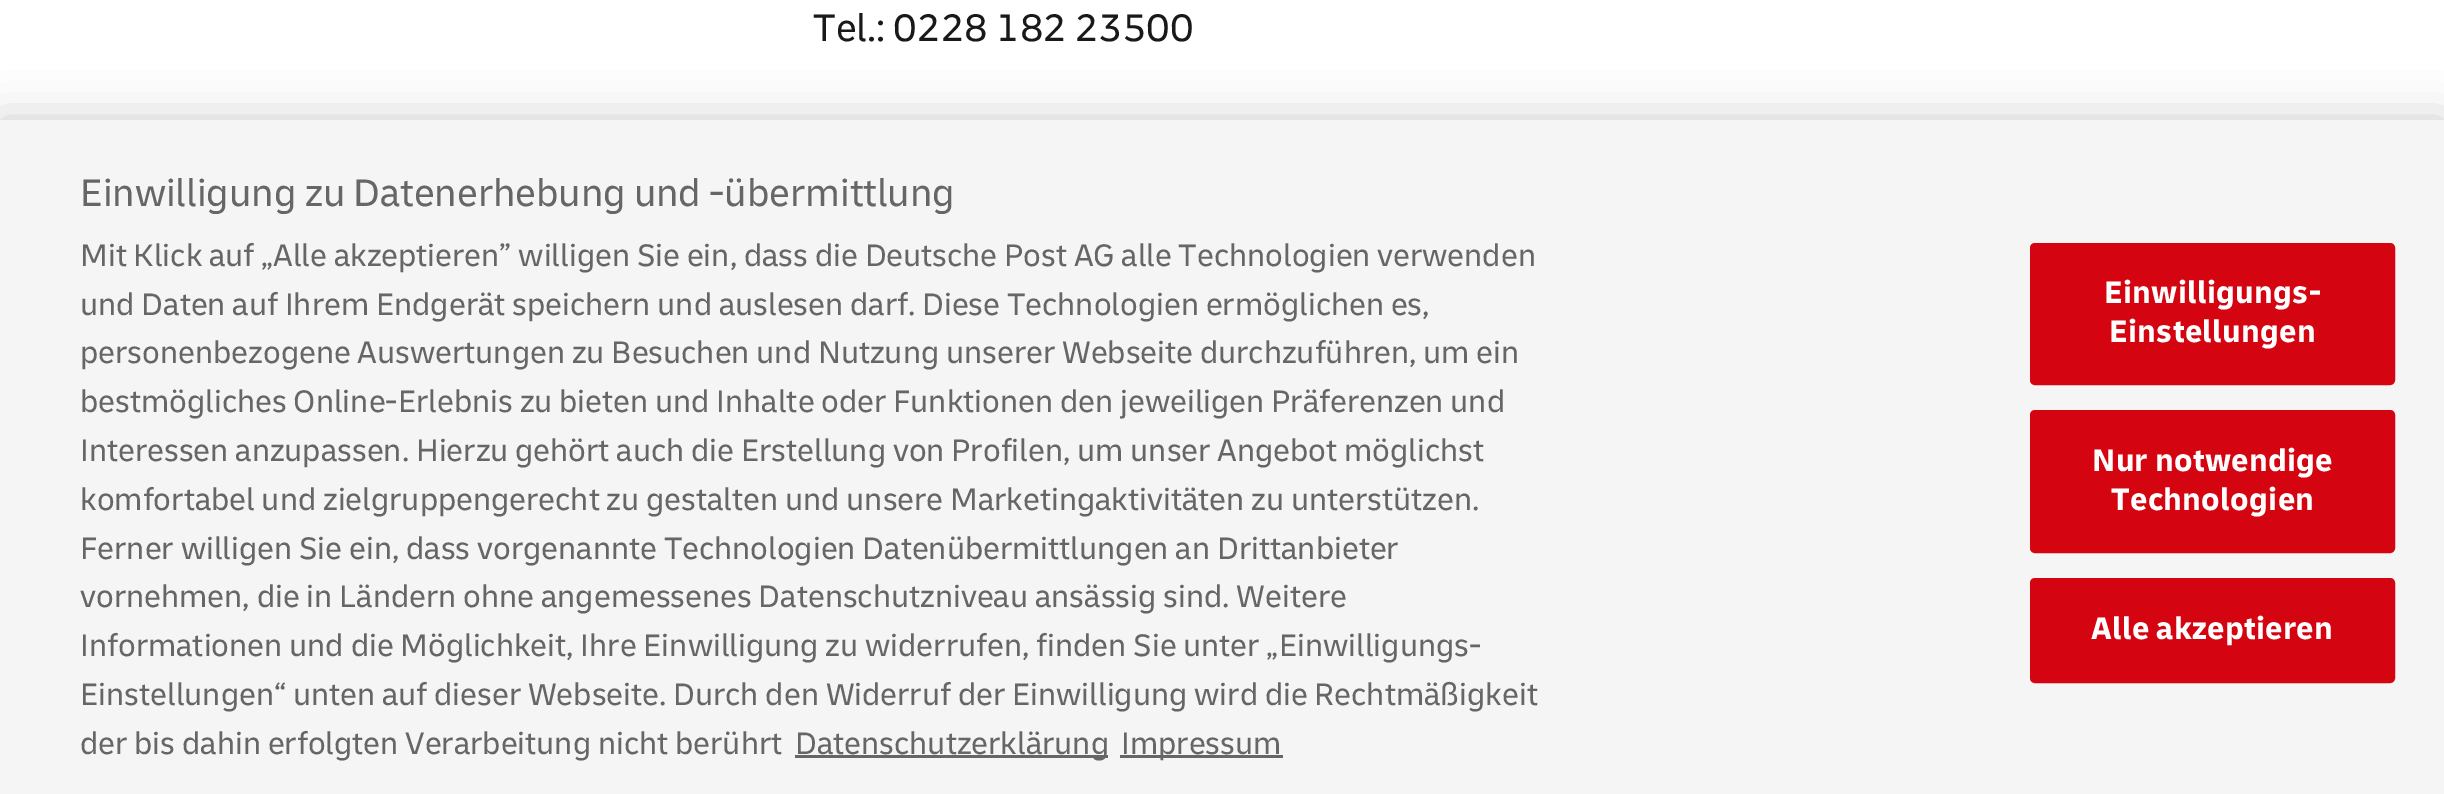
%!PS-Adobe-3.0
%%BoundingBox: 0 0 2444 794
%%LanguageLevel: 3
%%Pages: 1
%%EndComments
%%BeginProlog
/setink { 3 { 255 div 3 1 roll } repeat setrgbcolor } def
/usefont { [ exch dup neg 0 0 3 -1 roll 0 0 ] selectfont } def
/drawtext { setink usefont moveto show } def
/fillbox { setink rectfill } def
/setalpha { dup .setfillconstantalpha .setstrokeconstantalpha } def
/rrect { 5 dict begin { /r /h /w /y /x } { exch def } forall
  x r add y moveto x w add y 2 copy h add r arct x w add y h add x 1 index r arct
  x y h add x y r arct x y 2 copy exch w add exch r arct closepath end } def
/softshadow { 12 dict begin { /a /b /q /h /w /y /x } { exch def } forall gsave /was 0 def
  9 -2 -9 { dup b mul 4 div /e exch def 1 sub .425 mul 2.718 exch exp 1 add a .99 .min exch div /now exch def
    1 1 now sub 1 was sub div sub setalpha /was now def
    w h .min e 2 mul add 0 gt { x e sub y e sub w e 2 mul add h e 2 mul add
      q e add b .6 mul add w h .min 2 div e add .min 0 .max rrect fill } if } for grestore end } def
%%EndProlog
%%BeginSetup
<< /PageSize [2444 794] /PageUsesTransparency true >> setpagedevice
%%EndSetup
%%Page: 1 1
0 .pushpdf14devicefilter
0 794 translate 1 -1 scale
4 setmiterlimit
0 0 2444 794 255 255 255 fillbox
(Tel.: 0228 182 23500) 813 41 /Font-Regular 40 25 25 25 drawtext
0 0 0 setink
0 120 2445 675 0 22.5 0.2 softshadow
0 120 2444 674 245 245 245 fillbox
(Einwilligung zu Datenerhebung und -übermittlung) 80 206 /Font-Regular 40 102 102 102 drawtext
(Mit Klick auf „Alle akzeptieren” willigen Sie ein, dass die Deutsche Post AG alle Technologien verwenden) 80 266 /Font-Regular 32.5 102 102 102 drawtext
(und Daten auf Ihrem Endgerät speichern und auslesen darf. Diese Technologien ermöglichen es,) 80 315 /Font-Regular 32.5 102 102 102 drawtext
(personenbezogene Auswertungen zu Besuchen und Nutzung unserer Webseite durchzuführen, um ein) 80 363 /Font-Regular 32.5 102 102 102 drawtext
(bestmögliches Online-Erlebnis zu bieten und Inhalte oder Funktionen den jeweiligen Präferenzen und) 80 412 /Font-Regular 32.5 102 102 102 drawtext
(Interessen anzupassen. Hierzu gehört auch die Erstellung von Profilen, um unser Angebot möglichst) 80 461 /Font-Regular 32.5 102 102 102 drawtext
(komfortabel und zielgruppengerecht zu gestalten und unsere Marketingaktivitäten zu unterstützen.) 80 510 /Font-Regular 32.5 102 102 102 drawtext
(Ferner willigen Sie ein, dass vorgenannte Technologien Datenübermittlungen an Drittanbieter) 80 559 /Font-Regular 32.5 102 102 102 drawtext
(vornehmen, die in Ländern ohne angemessenes Datenschutzniveau ansässig sind. Weitere) 80 607 /Font-Regular 32.5 102 102 102 drawtext
(Informationen und die Möglichkeit, Ihre Einwilligung zu widerrufen, finden Sie unter „Einwilligungs-) 80 656 /Font-Regular 32.5 102 102 102 drawtext
(Einstellungen“ unten auf dieser Webseite. Durch den Widerruf der Einwilligung wird die Rechtmäßigkeit) 80 705 /Font-Regular 32.5 102 102 102 drawtext
(der bis dahin erfolgten Verarbeitung nicht berührt) 80 754 /Font-Regular 32.5 102 102 102 drawtext
795 755 313 3 102 102 102 fillbox
(Datenschutzerklärung) 795 754 /Font-Regular 32.5 102 102 102 drawtext
1120 755 163 3 102 102 102 fillbox
(Impressum) 1121 754 /Font-Regular 32.5 102 102 102 drawtext
212 5 17 setink
2031.5 244.5 362 139 3.5 rrect gsave fill grestore
3 setlinewidth
stroke
/Font-Bold 32.5 usefont
255 255 255 setink
2104 303 moveto 0.3 0 (Einwilligungs-) ashow
2109 342 moveto 0.3 0 (Einstellungen) ashow
212 5 17 setink
2031.5 411.5 362 140 3.5 rrect gsave fill grestore
stroke
255 255 255 setink
2092 471 moveto 0.3 0 (Nur notwendige) ashow
2111 510 moveto 0.3 0 (Technologien) ashow
212 5 17 setink
2031.5 579.5 362 102 3.5 rrect gsave fill grestore
stroke
255 255 255 setink
2091 639 moveto 0.3 0 (Alle akzeptieren) ashow
.poppdf14devicefilter showpage
%%EOF
